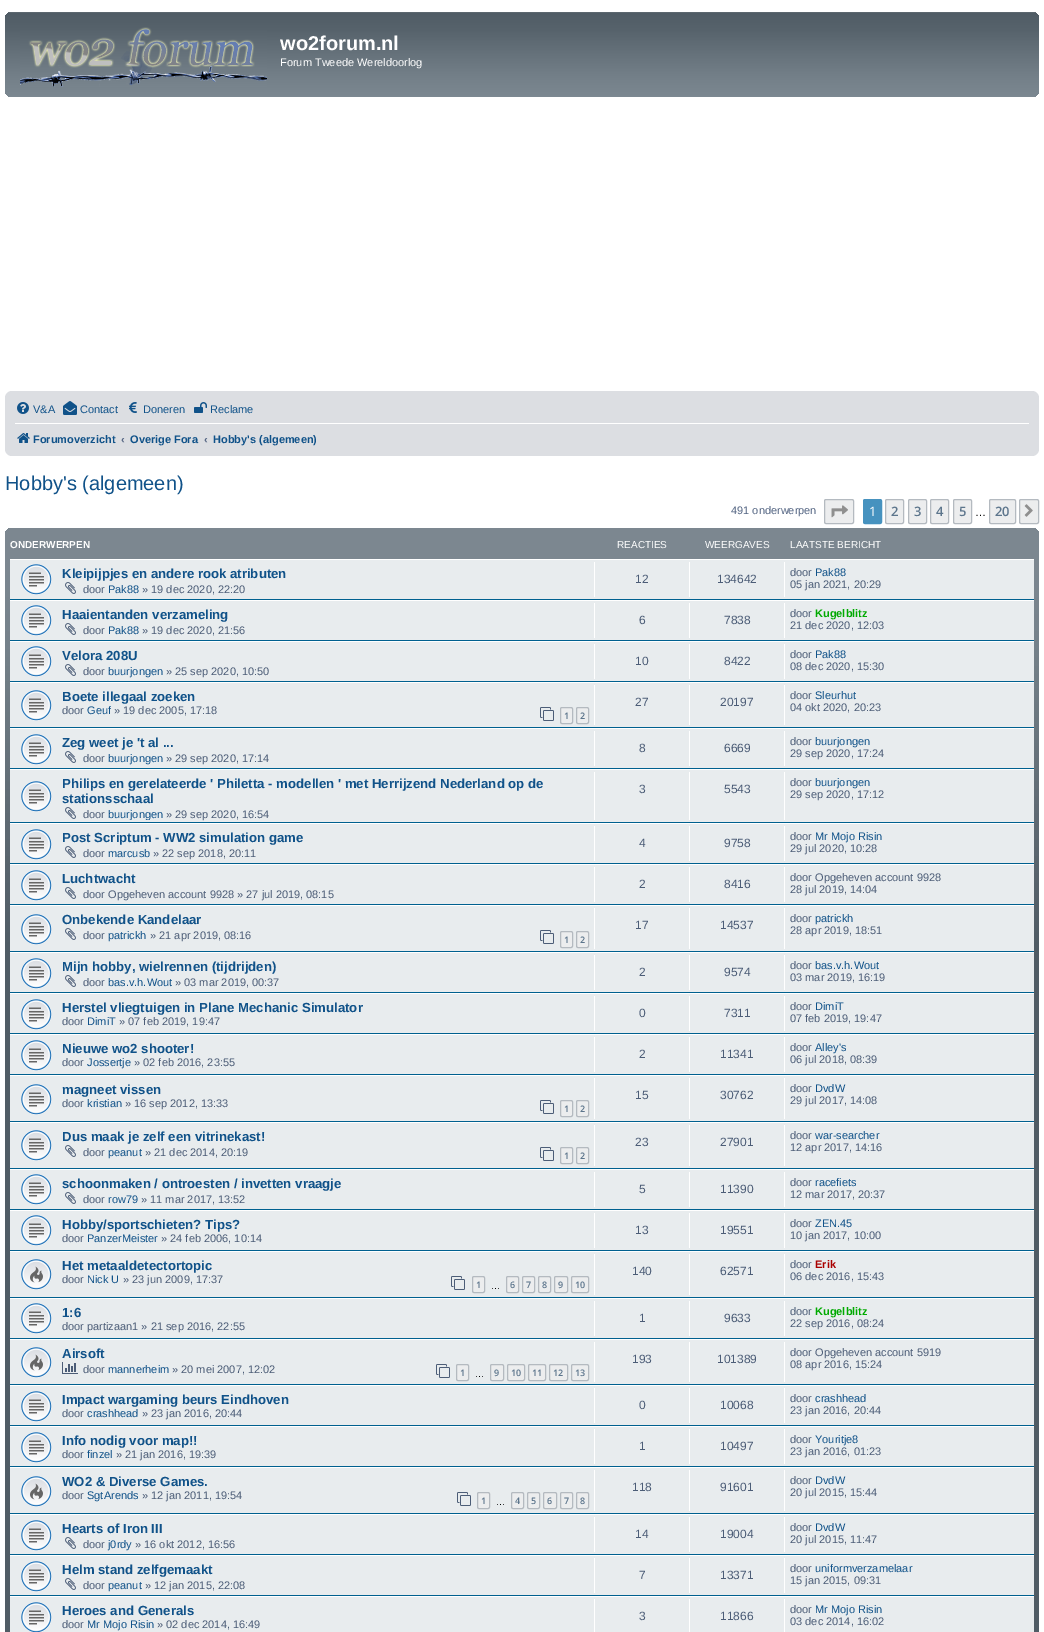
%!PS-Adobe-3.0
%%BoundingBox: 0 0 1044 1632
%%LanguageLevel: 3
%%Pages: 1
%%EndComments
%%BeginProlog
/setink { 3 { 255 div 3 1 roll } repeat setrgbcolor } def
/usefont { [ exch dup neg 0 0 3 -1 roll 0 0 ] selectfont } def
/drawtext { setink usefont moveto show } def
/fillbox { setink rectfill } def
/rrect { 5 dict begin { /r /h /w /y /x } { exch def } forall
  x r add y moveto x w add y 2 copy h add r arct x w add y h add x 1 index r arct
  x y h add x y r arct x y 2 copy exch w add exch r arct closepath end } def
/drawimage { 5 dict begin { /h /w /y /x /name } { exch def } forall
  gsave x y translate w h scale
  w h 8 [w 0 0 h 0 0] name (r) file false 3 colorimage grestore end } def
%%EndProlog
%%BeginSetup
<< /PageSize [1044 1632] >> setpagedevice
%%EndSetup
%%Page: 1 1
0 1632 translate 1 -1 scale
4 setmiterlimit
0 0 1044 1632 255 255 255 fillbox
gsave 5 12 1034 85 7 rrect clip newpath
<< /ShadingType 2 /ColorSpace /DeviceRGB /Coords [522 12 522 97] /Extend [true true] /Function << /FunctionType 3 /Domain [0 1] /Functions [<< /FunctionType 2 /Domain [0 1] /C0 [0.431 0.467 0.498] /C1 [0.314 0.361 0.396] /N 1 >> << /FunctionType 2 /Domain [0 1] /C0 [0.314 0.361 0.396] /C1 [0.337 0.384 0.42] /N 1 >> << /FunctionType 2 /Domain [0 1] /C0 [0.337 0.384 0.42] /C1 [0.451 0.498 0.533] /N 1 >> << /FunctionType 2 /Domain [0 1] /C0 [0.451 0.498 0.533] /C1 [0.486 0.533 0.569] /N 1 >>] /Bounds [0.01 0.2 0.75] /Encode [0 1 0 1 0 1 0 1] >> >> shfill grestore
(assets/img1.rgb) 20 27 247 60 drawimage
(wo2forum.nl) 280 50 /LiberationSans-Bold 20 255 255 255 drawtext
(Forum Tweede Wereldoorlog) 280 66 /LiberationSans-Regular 11 255 255 255 drawtext
220 222 226 setink
5 391 1034 65 7 rrect fill
(assets/img2.rgb) 17 402 12 12 drawimage
(V&A) 33 413 /LiberationSans-Regular 11 16 82 137 drawtext
(assets/img3.rgb) 63 401 14 14 drawimage
(Contact) 80 413 /LiberationSans-Regular 11 16 82 137 drawtext
(assets/img4.rgb) 129 402 8 11 drawimage
(Doneren) 143 413 /LiberationSans-Regular 11 16 82 137 drawtext
(assets/img5.rgb) 194 402 13 11 drawimage
(Reclame) 210 413 /LiberationSans-Regular 11 16 82 137 drawtext
15 423 1014 1 255 255 255 fillbox
(assets/img6.rgb) 17 433 13 10 drawimage
(Forumoverzicht) 33 443 /LiberationSans-Bold 11 16 82 137 drawtext
(‹) 121 443 /LiberationSans-Bold 11 83 100 130 drawtext
(Overige Fora) 130 443 /LiberationSans-Bold 11 16 82 137 drawtext
(‹) 204 443 /LiberationSans-Bold 11 83 100 130 drawtext
(Hobby's \(algemeen\)) 213 443 /LiberationSans-Bold 11 16 82 137 drawtext
(Hobby's \(algemeen\)) 5 490 /LiberationSans-Regular 20 16 82 137 drawtext
(491 onderwerpen) 731 514 /LiberationSans-Regular 11 83 100 130 drawtext
236 237 238 setink
824.5 499.5 29 24 1.5 rrect gsave fill grestore
180 186 192 setink
stroke
(assets/img7.rgb) 831 505 17 13 drawimage
70 146 191 setink
863.5 499.5 18 24 1.5 rrect gsave fill grestore
stroke
(1) 869 516 /OpenSans-Regular 13 255 255 255 drawtext
236 237 238 setink
885.5 499.5 18 24 1.5 rrect gsave fill grestore
180 186 192 setink
stroke
(2) 891 516 /OpenSans-SemiBold 13 92 117 140 drawtext
236 237 238 setink
908.5 499.5 18 24 1.5 rrect gsave fill grestore
180 186 192 setink
stroke
(3) 914 516 /OpenSans-SemiBold 13 92 117 140 drawtext
236 237 238 setink
930.5 499.5 18 24 1.5 rrect gsave fill grestore
180 186 192 setink
stroke
(4) 936 516 /OpenSans-SemiBold 13 92 117 140 drawtext
236 237 238 setink
953.5 499.5 18 24 1.5 rrect gsave fill grestore
180 186 192 setink
stroke
(5) 959 516 /OpenSans-SemiBold 13 92 117 140 drawtext
(…) 975 516 /LiberationSans-Regular 11 0 0 0 drawtext
236 237 238 setink
989.5 499.5 26 24 1.5 rrect gsave fill grestore
180 186 192 setink
stroke
(20) 995 516 /OpenSans-SemiBold 13 92 117 140 drawtext
236 237 238 setink
1019.5 499.5 19 24 1.5 rrect gsave fill grestore
180 186 192 setink
stroke
(assets/img8.rgb) 1024 504 9 13 drawimage
gsave 5 528 1034 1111 7 rrect clip newpath
<< /ShadingType 2 /ColorSpace /DeviceRGB /Coords [522 528 522 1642] /Extend [true true] /Function << /FunctionType 3 /Domain [0 1] /Functions [<< /FunctionType 2 /Domain [0 1] /C0 [0.486 0.533 0.569] /C1 [0.486 0.529 0.565] /N 1 >> << /FunctionType 2 /Domain [0 1] /C0 [0.486 0.529 0.565] /C1 [0.463 0.51 0.545] /N 1 >> << /FunctionType 2 /Domain [0 1] /C0 [0.463 0.51 0.545] /C1 [0.357 0.4 0.435] /N 1 >> << /FunctionType 2 /Domain [0 1] /C0 [0.357 0.4 0.435] /C1 [0.314 0.361 0.396] /N 1 >> << /FunctionType 2 /Domain [0 1] /C0 [0.314 0.361 0.396] /C1 [0.314 0.361 0.396] /N 1 >>] /Bounds [0.04 0.1 0.29 0.38] /Encode [0 1 0 1 0 1 0 1 0 1] >> >> shfill grestore
(ONDERWERPEN) 10 548 /LiberationSans-Bold 10 255 255 255 drawtext
(REACTIES) 617 548 /LiberationSans-Regular 10 255 255 255 drawtext
(WEERGAVES) 705 548 /LiberationSans-Regular 10 255 255 255 drawtext
(LAATSTE BERICHT) 790 548 /LiberationSans-Regular 10 255 255 255 drawtext
10 560 1024 39 232 236 238 fillbox
10 559 1024 1 255 255 255 fillbox
10 599 1024 1 0 96 143 fillbox
(assets/img9.rgb) 21 564 31 31 drawimage
(Kleipijpjes en andere rook atributen) 62 578 /LiberationSans-Bold 13.2 16 82 137 drawtext
(assets/img10.rgb) 65 582 11 12 drawimage
(door) 83 593 /LiberationSans-Regular 11 76 93 119 drawtext
(Pak88) 108 593 /LiberationSans-Regular 11 16 82 137 drawtext
(» 19 dec 2020, 22:20) 142 593 /LiberationSans-Regular 11 76 93 119 drawtext
594 562 1 35 255 255 255 fillbox
(12) 635 583 /LiberationSans-Regular 12 76 93 119 drawtext
689 562 1 35 255 255 255 fillbox
(134642) 717 583 /LiberationSans-Regular 12 76 93 119 drawtext
784 562 1 35 255 255 255 fillbox
(door) 790 576 /LiberationSans-Regular 11 76 93 119 drawtext
(Pak88) 815 576 /LiberationSans-Regular 11 16 82 137 drawtext
(05 jan 2021, 20:29) 790 588 /LiberationSans-Regular 11 76 93 119 drawtext
10 601 1024 39 232 236 238 fillbox
10 600 1024 1 255 255 255 fillbox
10 640 1024 1 0 96 143 fillbox
(assets/img9.rgb) 21 605 31 31 drawimage
(Haaientanden verzameling) 62 619 /LiberationSans-Bold 13.2 16 82 137 drawtext
(assets/img10.rgb) 65 623 11 12 drawimage
(door) 83 634 /LiberationSans-Regular 11 76 93 119 drawtext
(Pak88) 108 634 /LiberationSans-Regular 11 16 82 137 drawtext
(» 19 dec 2020, 21:56) 142 634 /LiberationSans-Regular 11 76 93 119 drawtext
594 603 1 35 255 255 255 fillbox
(6) 639 624 /LiberationSans-Regular 12 76 93 119 drawtext
689 603 1 35 255 255 255 fillbox
(7838) 724 624 /LiberationSans-Regular 12 76 93 119 drawtext
784 603 1 35 255 255 255 fillbox
(door) 790 617 /LiberationSans-Regular 11 76 93 119 drawtext
(Kugelblitz) 815 617 /LiberationSans-Bold 11 0 170 0 drawtext
(21 dec 2020, 12:03) 790 629 /LiberationSans-Regular 11 76 93 119 drawtext
10 642 1024 39 232 236 238 fillbox
10 641 1024 1 255 255 255 fillbox
10 681 1024 1 0 96 143 fillbox
(assets/img9.rgb) 21 646 31 31 drawimage
(Velora 208U) 62 660 /LiberationSans-Bold 13.2 16 82 137 drawtext
(assets/img10.rgb) 65 664 11 12 drawimage
(door) 83 675 /LiberationSans-Regular 11 76 93 119 drawtext
(buurjongen) 108 675 /LiberationSans-Regular 11 16 82 137 drawtext
(» 25 sep 2020, 10:50) 166 675 /LiberationSans-Regular 11 76 93 119 drawtext
594 644 1 35 255 255 255 fillbox
(10) 635 665 /LiberationSans-Regular 12 76 93 119 drawtext
689 644 1 35 255 255 255 fillbox
(8422) 724 665 /LiberationSans-Regular 12 76 93 119 drawtext
784 644 1 35 255 255 255 fillbox
(door) 790 658 /LiberationSans-Regular 11 76 93 119 drawtext
(Pak88) 815 658 /LiberationSans-Regular 11 16 82 137 drawtext
(08 dec 2020, 15:30) 790 670 /LiberationSans-Regular 11 76 93 119 drawtext
10 683 1024 44 232 236 238 fillbox
10 682 1024 1 255 255 255 fillbox
10 727 1024 1 0 96 143 fillbox
(assets/img9.rgb) 21 690 31 31 drawimage
(Boete illegaal zoeken) 62 701 /LiberationSans-Bold 13.2 16 82 137 drawtext
(door) 62 714 /LiberationSans-Regular 11 76 93 119 drawtext
(Geuf) 87 714 /LiberationSans-Regular 11 16 82 137 drawtext
(» 19 dec 2005, 17:18) 114 714 /LiberationSans-Regular 11 76 93 119 drawtext
(assets/img11.rgb) 540 707 14 14 drawimage
236 237 238 setink
560.5 707.5 12 16 1.5 rrect gsave fill grestore
180 186 192 setink
stroke
(1) 564 719 /OpenSans-SemiBold 9 92 117 140 drawtext
236 237 238 setink
576.5 707.5 12 16 1.5 rrect gsave fill grestore
180 186 192 setink
stroke
(2) 580 719 /OpenSans-SemiBold 9 92 117 140 drawtext
594 685 1 40 255 255 255 fillbox
(27) 635 706 /LiberationSans-Regular 12 76 93 119 drawtext
689 685 1 40 255 255 255 fillbox
(20197) 720 706 /LiberationSans-Regular 12 76 93 119 drawtext
784 685 1 40 255 255 255 fillbox
(door) 790 699 /LiberationSans-Regular 11 76 93 119 drawtext
(Sleurhut) 815 699 /LiberationSans-Regular 11 16 82 137 drawtext
(04 okt 2020, 20:23) 790 711 /LiberationSans-Regular 11 76 93 119 drawtext
10 729 1024 39 232 236 238 fillbox
10 728 1024 1 255 255 255 fillbox
10 768 1024 1 0 96 143 fillbox
(assets/img9.rgb) 21 734 31 31 drawimage
(Zeg weet je 't al ...) 62 747 /LiberationSans-Bold 13.2 16 82 137 drawtext
(assets/img10.rgb) 65 751 11 12 drawimage
(door) 83 762 /LiberationSans-Regular 11 76 93 119 drawtext
(buurjongen) 108 762 /LiberationSans-Regular 11 16 82 137 drawtext
(» 29 sep 2020, 17:14) 166 762 /LiberationSans-Regular 11 76 93 119 drawtext
594 731 1 35 255 255 255 fillbox
(8) 639 752 /LiberationSans-Regular 12 76 93 119 drawtext
689 731 1 35 255 255 255 fillbox
(6669) 724 752 /LiberationSans-Regular 12 76 93 119 drawtext
784 731 1 35 255 255 255 fillbox
(door) 790 745 /LiberationSans-Regular 11 76 93 119 drawtext
(buurjongen) 815 745 /LiberationSans-Regular 11 16 82 137 drawtext
(29 sep 2020, 17:24) 790 757 /LiberationSans-Regular 11 76 93 119 drawtext
10 770 1024 52 232 236 238 fillbox
10 769 1024 1 255 255 255 fillbox
10 822 1024 1 0 96 143 fillbox
(assets/img9.rgb) 21 781 31 31 drawimage
(Philips en gerelateerde ' Philetta - modellen ' met Herrijzend Nederland op de) 62 788 /LiberationSans-Bold 13.2 16 82 137 drawtext
(stationsschaal) 62 803 /LiberationSans-Bold 13.2 16 82 137 drawtext
(assets/img10.rgb) 65 807 11 12 drawimage
(door) 83 818 /LiberationSans-Regular 11 76 93 119 drawtext
gsave
10 772 1024 48 rectclip
(buurjongen) 108 818 /LiberationSans-Regular 11 16 82 137 drawtext
grestore
(» 29 sep 2020, 16:54) 166 818 /LiberationSans-Regular 11 76 93 119 drawtext
594 772 1 48 255 255 255 fillbox
(3) 639 793 /LiberationSans-Regular 12 76 93 119 drawtext
689 772 1 48 255 255 255 fillbox
(5543) 724 793 /LiberationSans-Regular 12 76 93 119 drawtext
784 772 1 48 255 255 255 fillbox
(door) 790 786 /LiberationSans-Regular 11 76 93 119 drawtext
(buurjongen) 815 786 /LiberationSans-Regular 11 16 82 137 drawtext
(29 sep 2020, 17:12) 790 798 /LiberationSans-Regular 11 76 93 119 drawtext
10 824 1024 39 232 236 238 fillbox
10 823 1024 1 255 255 255 fillbox
10 863 1024 1 0 96 143 fillbox
(assets/img9.rgb) 21 829 31 31 drawimage
(Post Scriptum - WW2 simulation game) 62 842 /LiberationSans-Bold 13.2 16 82 137 drawtext
(assets/img10.rgb) 65 846 11 12 drawimage
(door) 83 857 /LiberationSans-Regular 11 76 93 119 drawtext
(marcusb) 108 857 /LiberationSans-Regular 11 16 82 137 drawtext
(» 22 sep 2018, 20:11) 153 857 /LiberationSans-Regular 11 76 93 119 drawtext
594 826 1 35 255 255 255 fillbox
(4) 639 847 /LiberationSans-Regular 12 76 93 119 drawtext
689 826 1 35 255 255 255 fillbox
(9758) 724 847 /LiberationSans-Regular 12 76 93 119 drawtext
784 826 1 35 255 255 255 fillbox
(door) 790 840 /LiberationSans-Regular 11 76 93 119 drawtext
(Mr Mojo Risin) 815 840 /LiberationSans-Regular 11 16 82 137 drawtext
(29 jul 2020, 10:28) 790 852 /LiberationSans-Regular 11 76 93 119 drawtext
10 865 1024 39 232 236 238 fillbox
10 864 1024 1 255 255 255 fillbox
10 904 1024 1 0 96 143 fillbox
(assets/img9.rgb) 21 870 31 31 drawimage
(Luchtwacht) 62 883 /LiberationSans-Bold 13.2 16 82 137 drawtext
(assets/img10.rgb) 65 887 11 12 drawimage
(door Opgeheven account 9928 » 27 jul 2019, 08:15) 83 898 /LiberationSans-Regular 11 76 93 119 drawtext
594 867 1 35 255 255 255 fillbox
(2) 639 888 /LiberationSans-Regular 12 76 93 119 drawtext
689 867 1 35 255 255 255 fillbox
(8416) 724 888 /LiberationSans-Regular 12 76 93 119 drawtext
784 867 1 35 255 255 255 fillbox
(door Opgeheven account 9928) 790 881 /LiberationSans-Regular 11 76 93 119 drawtext
(28 jul 2019, 14:04) 790 893 /LiberationSans-Regular 11 76 93 119 drawtext
10 906 1024 45 232 236 238 fillbox
10 905 1024 1 255 255 255 fillbox
10 951 1024 1 0 96 143 fillbox
(assets/img9.rgb) 21 914 31 31 drawimage
(Onbekende Kandelaar) 62 924 /LiberationSans-Bold 13.2 16 82 137 drawtext
(assets/img10.rgb) 65 928 11 12 drawimage
(door) 83 939 /LiberationSans-Regular 11 76 93 119 drawtext
(patrickh) 108 939 /LiberationSans-Regular 11 16 82 137 drawtext
(» 21 apr 2019, 08:16) 150 939 /LiberationSans-Regular 11 76 93 119 drawtext
(assets/img11.rgb) 540 930 14 14 drawimage
236 237 238 setink
560.5 931.5 12 16 1.5 rrect gsave fill grestore
180 186 192 setink
stroke
(1) 564 943 /OpenSans-SemiBold 9 92 117 140 drawtext
236 237 238 setink
576.5 931.5 12 16 1.5 rrect gsave fill grestore
180 186 192 setink
stroke
(2) 580 943 /OpenSans-SemiBold 9 92 117 140 drawtext
594 908 1 41 255 255 255 fillbox
(17) 635 929 /LiberationSans-Regular 12 76 93 119 drawtext
689 908 1 41 255 255 255 fillbox
(14537) 720 929 /LiberationSans-Regular 12 76 93 119 drawtext
784 908 1 41 255 255 255 fillbox
(door) 790 922 /LiberationSans-Regular 11 76 93 119 drawtext
(patrickh) 815 922 /LiberationSans-Regular 11 16 82 137 drawtext
(28 apr 2019, 18:51) 790 934 /LiberationSans-Regular 11 76 93 119 drawtext
10 953 1024 39 232 236 238 fillbox
10 952 1024 1 255 255 255 fillbox
10 992 1024 1 0 96 143 fillbox
(assets/img9.rgb) 21 958 31 31 drawimage
(Mijn hobby, wielrennen \(tijdrijden\)) 62 971 /LiberationSans-Bold 13.2 16 82 137 drawtext
(assets/img10.rgb) 65 975 11 12 drawimage
(door) 83 986 /LiberationSans-Regular 11 76 93 119 drawtext
(bas.v.h.Wout) 108 986 /LiberationSans-Regular 11 16 82 137 drawtext
(» 03 mar 2019, 00:37) 175 986 /LiberationSans-Regular 11 76 93 119 drawtext
594 955 1 35 255 255 255 fillbox
(2) 639 976 /LiberationSans-Regular 12 76 93 119 drawtext
689 955 1 35 255 255 255 fillbox
(9574) 724 976 /LiberationSans-Regular 12 76 93 119 drawtext
784 955 1 35 255 255 255 fillbox
(door) 790 969 /LiberationSans-Regular 11 76 93 119 drawtext
(bas.v.h.Wout) 815 969 /LiberationSans-Regular 11 16 82 137 drawtext
(03 mar 2019, 16:19) 790 981 /LiberationSans-Regular 11 76 93 119 drawtext
10 994 1024 39 232 236 238 fillbox
10 993 1024 1 255 255 255 fillbox
10 1033 1024 1 0 96 143 fillbox
(assets/img9.rgb) 21 999 31 31 drawimage
(Herstel vliegtuigen in Plane Mechanic Simulator) 62 1012 /LiberationSans-Bold 13.2 16 82 137 drawtext
(door) 62 1025 /LiberationSans-Regular 11 76 93 119 drawtext
(DimiT) 87 1025 /LiberationSans-Regular 11 16 82 137 drawtext
(» 07 feb 2019, 19:47) 119 1025 /LiberationSans-Regular 11 76 93 119 drawtext
594 996 1 35 255 255 255 fillbox
(0) 639 1017 /LiberationSans-Regular 12 76 93 119 drawtext
689 996 1 35 255 255 255 fillbox
(7311) 724 1017 /LiberationSans-Regular 12 76 93 119 drawtext
784 996 1 35 255 255 255 fillbox
(door) 790 1010 /LiberationSans-Regular 11 76 93 119 drawtext
(DimiT) 815 1010 /LiberationSans-Regular 11 16 82 137 drawtext
(07 feb 2019, 19:47) 790 1022 /LiberationSans-Regular 11 76 93 119 drawtext
10 1035 1024 39 232 236 238 fillbox
10 1034 1024 1 255 255 255 fillbox
10 1074 1024 1 0 96 143 fillbox
(assets/img9.rgb) 21 1040 31 31 drawimage
(Nieuwe wo2 shooter!) 62 1053 /LiberationSans-Bold 13.2 16 82 137 drawtext
(door) 62 1066 /LiberationSans-Regular 11 76 93 119 drawtext
(Jossertje) 87 1066 /LiberationSans-Regular 11 16 82 137 drawtext
(» 02 feb 2016, 23:55) 134 1066 /LiberationSans-Regular 11 76 93 119 drawtext
594 1037 1 35 255 255 255 fillbox
(2) 639 1058 /LiberationSans-Regular 12 76 93 119 drawtext
689 1037 1 35 255 255 255 fillbox
(11341) 720 1058 /LiberationSans-Regular 12 76 93 119 drawtext
784 1037 1 35 255 255 255 fillbox
(door) 790 1051 /LiberationSans-Regular 11 76 93 119 drawtext
(Alley's) 815 1051 /LiberationSans-Regular 11 16 82 137 drawtext
(06 jul 2018, 08:39) 790 1063 /LiberationSans-Regular 11 76 93 119 drawtext
10 1076 1024 45 232 236 238 fillbox
10 1075 1024 1 255 255 255 fillbox
10 1121 1024 1 0 96 143 fillbox
(assets/img9.rgb) 21 1084 31 31 drawimage
(magneet vissen) 62 1094 /LiberationSans-Bold 13.2 16 82 137 drawtext
(door) 62 1107 /LiberationSans-Regular 11 76 93 119 drawtext
(kristian) 87 1107 /LiberationSans-Regular 11 16 82 137 drawtext
(» 16 sep 2012, 13:33) 125 1107 /LiberationSans-Regular 11 76 93 119 drawtext
(assets/img11.rgb) 540 1100 14 14 drawimage
236 237 238 setink
560.5 1100.5 12 16 1.5 rrect gsave fill grestore
180 186 192 setink
stroke
(1) 564 1112 /OpenSans-SemiBold 9 92 117 140 drawtext
236 237 238 setink
576.5 1100.5 12 16 1.5 rrect gsave fill grestore
180 186 192 setink
stroke
(2) 580 1112 /OpenSans-SemiBold 9 92 117 140 drawtext
594 1078 1 41 255 255 255 fillbox
(15) 635 1099 /LiberationSans-Regular 12 76 93 119 drawtext
689 1078 1 41 255 255 255 fillbox
(30762) 720 1099 /LiberationSans-Regular 12 76 93 119 drawtext
784 1078 1 41 255 255 255 fillbox
(door) 790 1092 /LiberationSans-Regular 11 76 93 119 drawtext
(DvdW) 815 1092 /LiberationSans-Regular 11 16 82 137 drawtext
(29 jul 2017, 14:08) 790 1104 /LiberationSans-Regular 11 76 93 119 drawtext
10 1123 1024 45 232 236 238 fillbox
10 1122 1024 1 255 255 255 fillbox
10 1168 1024 1 0 96 143 fillbox
(assets/img9.rgb) 21 1130 31 31 drawimage
(Dus maak je zelf een vitrinekast!) 62 1141 /LiberationSans-Bold 13.2 16 82 137 drawtext
(assets/img10.rgb) 65 1145 11 12 drawimage
(door) 83 1156 /LiberationSans-Regular 11 76 93 119 drawtext
(peanut) 108 1156 /LiberationSans-Regular 11 16 82 137 drawtext
(» 21 dec 2014, 20:19) 145 1156 /LiberationSans-Regular 11 76 93 119 drawtext
(assets/img11.rgb) 540 1147 14 14 drawimage
236 237 238 setink
560.5 1147.5 12 16 1.5 rrect gsave fill grestore
180 186 192 setink
stroke
(1) 564 1159 /OpenSans-SemiBold 9 92 117 140 drawtext
236 237 238 setink
576.5 1147.5 12 16 1.5 rrect gsave fill grestore
180 186 192 setink
stroke
(2) 580 1159 /OpenSans-SemiBold 9 92 117 140 drawtext
594 1125 1 41 255 255 255 fillbox
(23) 635 1146 /LiberationSans-Regular 12 76 93 119 drawtext
689 1125 1 41 255 255 255 fillbox
(27901) 720 1146 /LiberationSans-Regular 12 76 93 119 drawtext
784 1125 1 41 255 255 255 fillbox
(door) 790 1139 /LiberationSans-Regular 11 76 93 119 drawtext
(war-searcher) 815 1139 /LiberationSans-Regular 11 16 82 137 drawtext
(12 apr 2017, 14:16) 790 1151 /LiberationSans-Regular 11 76 93 119 drawtext
10 1170 1024 39 232 236 238 fillbox
10 1169 1024 1 255 255 255 fillbox
10 1209 1024 1 0 96 143 fillbox
(assets/img9.rgb) 21 1174 31 31 drawimage
(schoonmaken / ontroesten / invetten vraagje) 62 1188 /LiberationSans-Bold 13.2 16 82 137 drawtext
(assets/img10.rgb) 65 1192 11 12 drawimage
(door) 83 1203 /LiberationSans-Regular 11 76 93 119 drawtext
(row79) 108 1203 /LiberationSans-Regular 11 16 82 137 drawtext
(» 11 mar 2017, 13:52) 141 1203 /LiberationSans-Regular 11 76 93 119 drawtext
594 1172 1 35 255 255 255 fillbox
(5) 639 1193 /LiberationSans-Regular 12 76 93 119 drawtext
689 1172 1 35 255 255 255 fillbox
(11390) 720 1193 /LiberationSans-Regular 12 76 93 119 drawtext
784 1172 1 35 255 255 255 fillbox
(door) 790 1186 /LiberationSans-Regular 11 76 93 119 drawtext
(racefiets) 815 1186 /LiberationSans-Regular 11 16 82 137 drawtext
(12 mar 2017, 20:37) 790 1198 /LiberationSans-Regular 11 76 93 119 drawtext
10 1211 1024 39 232 236 238 fillbox
10 1210 1024 1 255 255 255 fillbox
10 1250 1024 1 0 96 143 fillbox
(assets/img9.rgb) 21 1215 31 31 drawimage
(Hobby/sportschieten? Tips?) 62 1229 /LiberationSans-Bold 13.2 16 82 137 drawtext
(door) 62 1242 /LiberationSans-Regular 11 76 93 119 drawtext
(PanzerMeister) 87 1242 /LiberationSans-Regular 11 16 82 137 drawtext
(» 24 feb 2006, 10:14) 161 1242 /LiberationSans-Regular 11 76 93 119 drawtext
594 1213 1 35 255 255 255 fillbox
(13) 635 1234 /LiberationSans-Regular 12 76 93 119 drawtext
689 1213 1 35 255 255 255 fillbox
(19551) 720 1234 /LiberationSans-Regular 12 76 93 119 drawtext
784 1213 1 35 255 255 255 fillbox
(door) 790 1227 /LiberationSans-Regular 11 76 93 119 drawtext
(ZEN.45) 815 1227 /LiberationSans-Regular 11 16 82 137 drawtext
(10 jan 2017, 10:00) 790 1239 /LiberationSans-Regular 11 76 93 119 drawtext
10 1252 1024 45 232 236 238 fillbox
10 1251 1024 1 255 255 255 fillbox
10 1297 1024 1 0 96 143 fillbox
(assets/img12.rgb) 21 1259 31 31 drawimage
(Het metaaldetectortopic) 62 1270 /LiberationSans-Bold 13.2 16 82 137 drawtext
(door) 62 1283 /LiberationSans-Regular 11 76 93 119 drawtext
(Nick U) 87 1283 /LiberationSans-Regular 11 16 82 137 drawtext
(» 23 jun 2009, 17:37) 123 1283 /LiberationSans-Regular 11 76 93 119 drawtext
(assets/img11.rgb) 451 1276 14 14 drawimage
236 237 238 setink
472.5 1276.5 12 16 1.5 rrect gsave fill grestore
180 186 192 setink
stroke
(1) 476 1288 /OpenSans-SemiBold 9 92 117 140 drawtext
(…) 491 1289 /LiberationSans-Regular 9 0 0 0 drawtext
236 237 238 setink
506.5 1276.5 12 16 1.5 rrect gsave fill grestore
180 186 192 setink
stroke
(6) 510 1288 /OpenSans-SemiBold 9 92 117 140 drawtext
236 237 238 setink
522.5 1276.5 12 16 1.5 rrect gsave fill grestore
180 186 192 setink
stroke
(7) 526 1288 /OpenSans-SemiBold 9 92 117 140 drawtext
236 237 238 setink
538.5 1276.5 12 16 1.5 rrect gsave fill grestore
180 186 192 setink
stroke
(8) 542 1288 /OpenSans-SemiBold 9 92 117 140 drawtext
236 237 238 setink
554.5 1276.5 13 16 1.5 rrect gsave fill grestore
180 186 192 setink
stroke
(9) 558 1288 /OpenSans-SemiBold 9 92 117 140 drawtext
236 237 238 setink
571.5 1276.5 17 16 1.5 rrect gsave fill grestore
180 186 192 setink
stroke
(10) 575 1288 /OpenSans-SemiBold 9 92 117 140 drawtext
594 1254 1 41 255 255 255 fillbox
(140) 632 1275 /LiberationSans-Regular 12 76 93 119 drawtext
689 1254 1 41 255 255 255 fillbox
(62571) 720 1275 /LiberationSans-Regular 12 76 93 119 drawtext
784 1254 1 41 255 255 255 fillbox
(door) 790 1268 /LiberationSans-Regular 11 76 93 119 drawtext
(Erik) 815 1268 /LiberationSans-Bold 11 170 0 0 drawtext
(06 dec 2016, 15:43) 790 1280 /LiberationSans-Regular 11 76 93 119 drawtext
10 1299 1024 39 232 236 238 fillbox
10 1298 1024 1 255 255 255 fillbox
10 1338 1024 1 0 96 143 fillbox
(assets/img9.rgb) 21 1303 31 31 drawimage
(1:6) 62 1317 /LiberationSans-Bold 13.2 16 82 137 drawtext
(door partizaan1 » 21 sep 2016, 22:55) 62 1330 /LiberationSans-Regular 11 76 93 119 drawtext
594 1301 1 35 255 255 255 fillbox
(1) 639 1322 /LiberationSans-Regular 12 76 93 119 drawtext
689 1301 1 35 255 255 255 fillbox
(9633) 724 1322 /LiberationSans-Regular 12 76 93 119 drawtext
784 1301 1 35 255 255 255 fillbox
(door) 790 1315 /LiberationSans-Regular 11 76 93 119 drawtext
(Kugelblitz) 815 1315 /LiberationSans-Bold 11 0 170 0 drawtext
(22 sep 2016, 08:24) 790 1327 /LiberationSans-Regular 11 76 93 119 drawtext
10 1340 1024 44 232 236 238 fillbox
10 1339 1024 1 255 255 255 fillbox
10 1384 1024 1 0 96 143 fillbox
(assets/img12.rgb) 21 1347 31 31 drawimage
(Airsoft) 62 1358 /LiberationSans-Bold 13.2 16 82 137 drawtext
(assets/img13.rgb) 62 1362 16 12 drawimage
(door) 83 1373 /LiberationSans-Regular 11 76 93 119 drawtext
(mannerheim) 108 1373 /LiberationSans-Regular 11 16 82 137 drawtext
(» 20 mei 2007, 12:02) 172 1373 /LiberationSans-Regular 11 76 93 119 drawtext
(assets/img11.rgb) 436 1364 14 14 drawimage
236 237 238 setink
456.5 1364.5 12 16 1.5 rrect gsave fill grestore
180 186 192 setink
stroke
(1) 460 1376 /OpenSans-SemiBold 9 92 117 140 drawtext
(…) 475 1377 /LiberationSans-Regular 9 0 0 0 drawtext
236 237 238 setink
490.5 1364.5 13 16 1.5 rrect gsave fill grestore
180 186 192 setink
stroke
(9) 494 1376 /OpenSans-SemiBold 9 92 117 140 drawtext
236 237 238 setink
507.5 1364.5 17 16 1.5 rrect gsave fill grestore
180 186 192 setink
stroke
(10) 511 1376 /OpenSans-SemiBold 9 92 117 140 drawtext
236 237 238 setink
528.5 1364.5 17 16 1.5 rrect gsave fill grestore
180 186 192 setink
stroke
(11) 532 1376 /OpenSans-SemiBold 9 92 117 140 drawtext
236 237 238 setink
549.5 1364.5 18 16 1.5 rrect gsave fill grestore
180 186 192 setink
stroke
(12) 553 1376 /OpenSans-SemiBold 9 92 117 140 drawtext
236 237 238 setink
571.5 1364.5 17 16 1.5 rrect gsave fill grestore
180 186 192 setink
stroke
(13) 575 1376 /OpenSans-SemiBold 9 92 117 140 drawtext
594 1342 1 40 255 255 255 fillbox
(193) 632 1363 /LiberationSans-Regular 12 76 93 119 drawtext
689 1342 1 40 255 255 255 fillbox
(101389) 717 1363 /LiberationSans-Regular 12 76 93 119 drawtext
784 1342 1 40 255 255 255 fillbox
(door Opgeheven account 5919) 790 1356 /LiberationSans-Regular 11 76 93 119 drawtext
(08 apr 2016, 15:24) 790 1368 /LiberationSans-Regular 11 76 93 119 drawtext
10 1386 1024 39 232 236 238 fillbox
10 1385 1024 1 255 255 255 fillbox
10 1425 1024 1 0 96 143 fillbox
(assets/img9.rgb) 21 1391 31 31 drawimage
(Impact wargaming beurs Eindhoven) 62 1404 /LiberationSans-Bold 13.2 16 82 137 drawtext
(door) 62 1417 /LiberationSans-Regular 11 76 93 119 drawtext
(crashhead) 87 1417 /LiberationSans-Regular 11 16 82 137 drawtext
(» 23 jan 2016, 20:44) 142 1417 /LiberationSans-Regular 11 76 93 119 drawtext
594 1388 1 35 255 255 255 fillbox
(0) 639 1409 /LiberationSans-Regular 12 76 93 119 drawtext
689 1388 1 35 255 255 255 fillbox
(10068) 720 1409 /LiberationSans-Regular 12 76 93 119 drawtext
784 1388 1 35 255 255 255 fillbox
(door) 790 1402 /LiberationSans-Regular 11 76 93 119 drawtext
(crashhead) 815 1402 /LiberationSans-Regular 11 16 82 137 drawtext
(23 jan 2016, 20:44) 790 1414 /LiberationSans-Regular 11 76 93 119 drawtext
10 1427 1024 39 232 236 238 fillbox
10 1426 1024 1 255 255 255 fillbox
10 1466 1024 1 0 96 143 fillbox
(assets/img9.rgb) 21 1432 31 31 drawimage
(Info nodig voor map!!) 62 1445 /LiberationSans-Bold 13.2 16 82 137 drawtext
(door) 62 1458 /LiberationSans-Regular 11 76 93 119 drawtext
(finzel) 87 1458 /LiberationSans-Regular 11 16 82 137 drawtext
(» 21 jan 2016, 19:39) 116 1458 /LiberationSans-Regular 11 76 93 119 drawtext
594 1429 1 35 255 255 255 fillbox
(1) 639 1450 /LiberationSans-Regular 12 76 93 119 drawtext
689 1429 1 35 255 255 255 fillbox
(10497) 720 1450 /LiberationSans-Regular 12 76 93 119 drawtext
784 1429 1 35 255 255 255 fillbox
(door) 790 1443 /LiberationSans-Regular 11 76 93 119 drawtext
(Youritje8) 815 1443 /LiberationSans-Regular 11 16 82 137 drawtext
(23 jan 2016, 01:23) 790 1455 /LiberationSans-Regular 11 76 93 119 drawtext
10 1468 1024 45 232 236 238 fillbox
10 1467 1024 1 255 255 255 fillbox
10 1513 1024 1 0 96 143 fillbox
(assets/img12.rgb) 21 1476 31 31 drawimage
(WO2 & Diverse Games.) 62 1486 /LiberationSans-Bold 13.2 16 82 137 drawtext
(door) 62 1499 /LiberationSans-Regular 11 76 93 119 drawtext
(SgtArends) 87 1499 /LiberationSans-Regular 11 16 82 137 drawtext
(» 12 jan 2011, 19:54) 142 1499 /LiberationSans-Regular 11 76 93 119 drawtext
(assets/img11.rgb) 457 1492 14 14 drawimage
236 237 238 setink
477.5 1492.5 12 16 1.5 rrect gsave fill grestore
180 186 192 setink
stroke
(1) 481 1504 /OpenSans-SemiBold 9 92 117 140 drawtext
(…) 496 1505 /LiberationSans-Regular 9 0 0 0 drawtext
236 237 238 setink
511.5 1492.5 12 16 1.5 rrect gsave fill grestore
180 186 192 setink
stroke
(4) 515 1504 /OpenSans-SemiBold 9 92 117 140 drawtext
236 237 238 setink
527.5 1492.5 12 16 1.5 rrect gsave fill grestore
180 186 192 setink
stroke
(5) 531 1504 /OpenSans-SemiBold 9 92 117 140 drawtext
236 237 238 setink
543.5 1492.5 13 16 1.5 rrect gsave fill grestore
180 186 192 setink
stroke
(6) 547 1504 /OpenSans-SemiBold 9 92 117 140 drawtext
236 237 238 setink
560.5 1492.5 12 16 1.5 rrect gsave fill grestore
180 186 192 setink
stroke
(7) 564 1504 /OpenSans-SemiBold 9 92 117 140 drawtext
236 237 238 setink
576.5 1492.5 12 16 1.5 rrect gsave fill grestore
180 186 192 setink
stroke
(8) 580 1504 /OpenSans-SemiBold 9 92 117 140 drawtext
594 1470 1 41 255 255 255 fillbox
(118) 632 1491 /LiberationSans-Regular 12 76 93 119 drawtext
689 1470 1 41 255 255 255 fillbox
(91601) 720 1491 /LiberationSans-Regular 12 76 93 119 drawtext
784 1470 1 41 255 255 255 fillbox
(door) 790 1484 /LiberationSans-Regular 11 76 93 119 drawtext
(DvdW) 815 1484 /LiberationSans-Regular 11 16 82 137 drawtext
(20 jul 2015, 15:44) 790 1496 /LiberationSans-Regular 11 76 93 119 drawtext
10 1515 1024 39 232 236 238 fillbox
10 1514 1024 1 255 255 255 fillbox
10 1554 1024 1 0 96 143 fillbox
(assets/img9.rgb) 21 1520 31 31 drawimage
(Hearts of Iron III) 62 1533 /LiberationSans-Bold 13.2 16 82 137 drawtext
(assets/img10.rgb) 65 1537 11 12 drawimage
(door) 83 1548 /LiberationSans-Regular 11 76 93 119 drawtext
(j0rdy) 108 1548 /LiberationSans-Regular 11 16 82 137 drawtext
(» 16 okt 2012, 16:56) 135 1548 /LiberationSans-Regular 11 76 93 119 drawtext
594 1517 1 35 255 255 255 fillbox
(14) 635 1538 /LiberationSans-Regular 12 76 93 119 drawtext
689 1517 1 35 255 255 255 fillbox
(19004) 720 1538 /LiberationSans-Regular 12 76 93 119 drawtext
784 1517 1 35 255 255 255 fillbox
(door) 790 1531 /LiberationSans-Regular 11 76 93 119 drawtext
(DvdW) 815 1531 /LiberationSans-Regular 11 16 82 137 drawtext
(20 jul 2015, 11:47) 790 1543 /LiberationSans-Regular 11 76 93 119 drawtext
10 1556 1024 39 232 236 238 fillbox
10 1555 1024 1 255 255 255 fillbox
10 1595 1024 1 0 96 143 fillbox
(assets/img9.rgb) 21 1561 31 31 drawimage
(Helm stand zelfgemaakt) 62 1574 /LiberationSans-Bold 13.2 16 82 137 drawtext
(assets/img10.rgb) 65 1578 11 12 drawimage
(door) 83 1589 /LiberationSans-Regular 11 76 93 119 drawtext
(peanut) 108 1589 /LiberationSans-Regular 11 16 82 137 drawtext
(» 12 jan 2015, 22:08) 145 1589 /LiberationSans-Regular 11 76 93 119 drawtext
594 1558 1 35 255 255 255 fillbox
(7) 639 1579 /LiberationSans-Regular 12 76 93 119 drawtext
689 1558 1 35 255 255 255 fillbox
(13371) 720 1579 /LiberationSans-Regular 12 76 93 119 drawtext
784 1558 1 35 255 255 255 fillbox
(door) 790 1572 /LiberationSans-Regular 11 76 93 119 drawtext
(uniformverzamelaar) 815 1572 /LiberationSans-Regular 11 16 82 137 drawtext
(15 jan 2015, 09:31) 790 1584 /LiberationSans-Regular 11 76 93 119 drawtext
10 1597 1024 35 232 236 238 fillbox
10 1596 1024 1 255 255 255 fillbox
(assets/img14.rgb) 21 1602 31 30 drawimage
(Heroes and Generals) 62 1615 /LiberationSans-Bold 13.2 16 82 137 drawtext
(door) 62 1628 /LiberationSans-Regular 11 76 93 119 drawtext
(Mr Mojo Risin) 87 1628 /LiberationSans-Regular 11 16 82 137 drawtext
(» 02 dec 2014, 16:49) 157 1628 /LiberationSans-Regular 11 76 93 119 drawtext
594 1599 1 33 255 255 255 fillbox
(3) 639 1620 /LiberationSans-Regular 12 76 93 119 drawtext
689 1599 1 33 255 255 255 fillbox
(11866) 720 1620 /LiberationSans-Regular 12 76 93 119 drawtext
784 1599 1 33 255 255 255 fillbox
(door) 790 1613 /LiberationSans-Regular 11 76 93 119 drawtext
(Mr Mojo Risin) 815 1613 /LiberationSans-Regular 11 16 82 137 drawtext
(03 dec 2014, 16:02) 790 1625 /LiberationSans-Regular 11 76 93 119 drawtext
showpage
%%EOF
